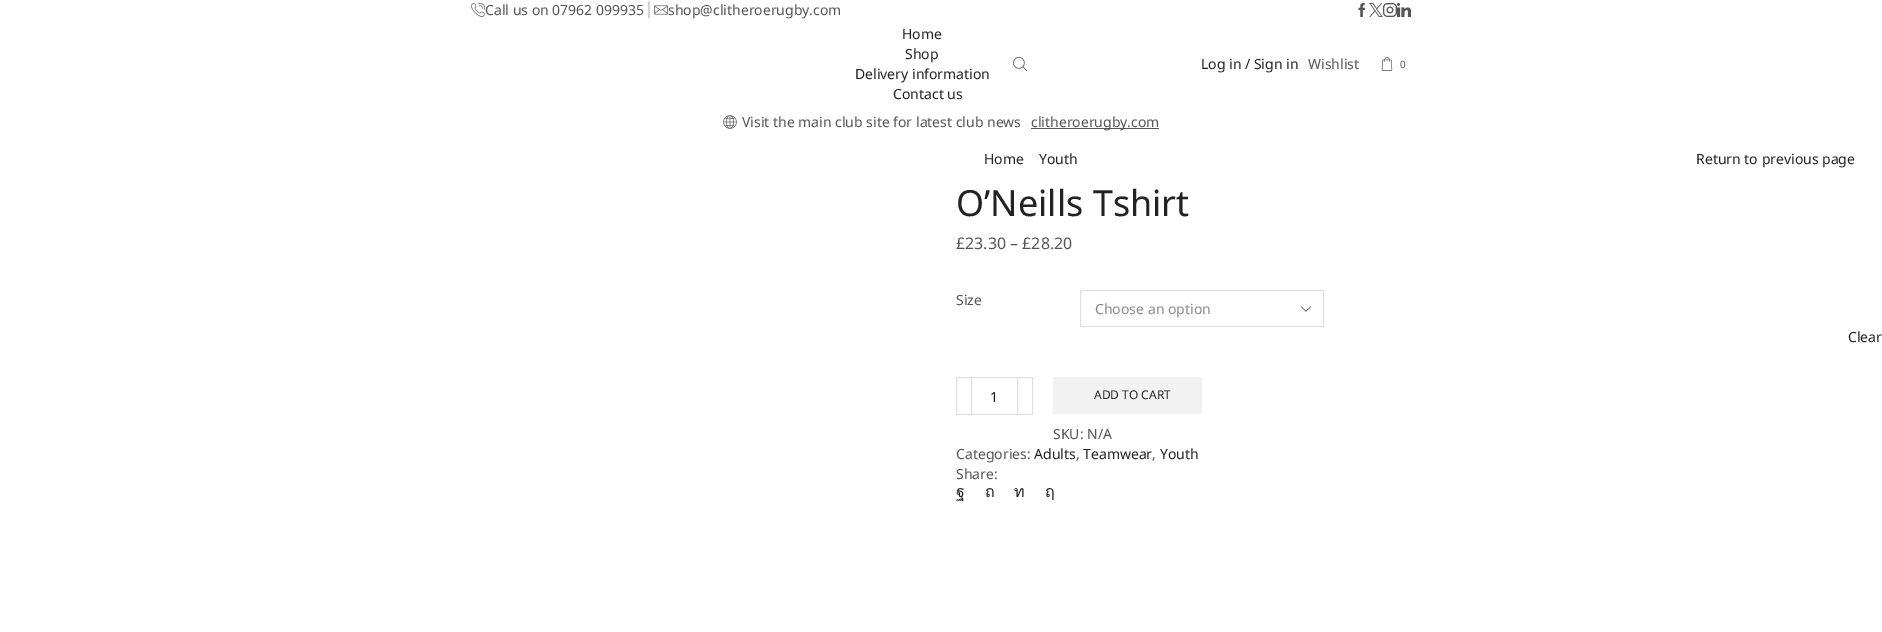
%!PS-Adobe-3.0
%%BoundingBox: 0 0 1882 632
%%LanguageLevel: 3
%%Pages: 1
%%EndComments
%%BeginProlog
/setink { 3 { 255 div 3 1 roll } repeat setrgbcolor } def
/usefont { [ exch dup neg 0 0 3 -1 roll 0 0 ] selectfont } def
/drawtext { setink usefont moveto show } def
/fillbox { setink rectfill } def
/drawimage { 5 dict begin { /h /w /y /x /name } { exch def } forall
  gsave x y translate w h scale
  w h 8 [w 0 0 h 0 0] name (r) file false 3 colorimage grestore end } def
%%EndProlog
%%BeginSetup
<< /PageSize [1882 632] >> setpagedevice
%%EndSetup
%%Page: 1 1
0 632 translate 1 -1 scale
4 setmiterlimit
0 0 1882 632 255 255 255 fillbox
(assets/img1.rgb) 471 3 14 14 drawimage
(Call us on 07962 099935) 485 15 /NotoSans-Regular 14 85 85 85 drawtext
(│) 644 14 /LiberationSerif-Regular 14 170 170 170 drawtext
(assets/img2.rgb) 654 5 14 10 drawimage
(shop@clitheroerugby.com) 668 15 /NotoSans-Regular 14 85 85 85 drawtext
(assets/img3.rgb) 1358 3 8 14 drawimage
(assets/img4.rgb) 1369 3 14 14 drawimage
(assets/img5.rgb) 1383 3 14 14 drawimage
(assets/img6.rgb) 1397 3 14 14 drawimage
(Home) 902 39 /NotoSans-Regular 14 34 34 34 drawtext
(Shop) 905 59 /NotoSans-Regular 14 34 34 34 drawtext
(Delivery information) 855 79 /NotoSans-Regular 14 34 34 34 drawtext
(Contact us) 893 99 /NotoSans-Regular 14 34 34 34 drawtext
(assets/img7.rgb) 1013 57 14 14 drawimage
(Log in / Sign in) 1201 69 /NotoSans-Regular 14 34 34 34 drawtext
(Wishlist) 1308 69 /NotoSans-Regular 14 85 85 85 drawtext
(assets/img8.rgb) 1381 57 12 14 drawimage
(0) 1400 68 /NotoSans-Regular 10 85 85 85 drawtext
(assets/img9.rgb) 723 115 14 14 drawimage
(Visit the main club site for latest club news) 742 127 /NotoSans-Regular 14 85 85 85 drawtext
1031 128 128 1 85 85 85 fillbox
(clitheroerugby.com) 1031 127 /NotoSans-Regular 14 85 85 85 drawtext
(Home) 984 164 /NotoSans-Regular 14 34 34 34 drawtext
(Youth) 1039 164 /NotoSans-Regular 14 34 34 34 drawtext
(Return to previous page) 1696 164 /NotoSans-Regular 14 34 34 34 drawtext
(O’Neills Tshirt) 956 216 /NotoSans-Regular 36 34 34 34 drawtext
(£23.30 – £28.20) 956 249 /NotoSans-Regular 16 85 85 85 drawtext
(Size) 956 305 /NotoSans-Regular 14 85 85 85 drawtext
(assets/img10.rgb) 1301 306 10 6 drawimage
225 225 225 setink
1080.5 290.5 243 36 rectstroke
(Choose an option) 1095 314 /NotoSans-Regular 14 136 136 136 drawtext
(Clear) 1848 342 /NotoSans-Regular 14 34 34 34 drawtext
225 225 225 setink
956.5 377.5 15 37 rectstroke
972 377 45 1 225 225 225 fillbox
972 414 45 1 225 225 225 fillbox
(1) 990 402 /NotoSans-Regular 14 34 34 34 drawtext
225 225 225 setink
1017.5 377.5 15 37 rectstroke
1053 377 149 37 242 242 242 fillbox
(ADD TO CART) 1094 399 /NotoSans-Regular 12 34 34 34 drawtext
(SKU: N/A) 1053 439 /NotoSans-Regular 14 85 85 85 drawtext
(Categories:) 956 459 /NotoSans-Regular 14 85 85 85 drawtext
(Adults) 1034 459 /NotoSans-Regular 14 34 34 34 drawtext
(,) 1076 459 /NotoSans-Regular 14 85 85 85 drawtext
(Teamwear) 1083 459 /NotoSans-Regular 14 34 34 34 drawtext
(,) 1152 459 /NotoSans-Regular 14 85 85 85 drawtext
(Youth) 1160 459 /NotoSans-Regular 14 34 34 34 drawtext
(Share:) 956 479 /NotoSans-Regular 14 85 85 85 drawtext
(ฐ) 956 497 /Loma-Regular 16 34 34 34 drawtext
(ถ) 985 497 /Loma-Regular 16 34 34 34 drawtext
(ท) 1014 497 /Loma-Regular 16 34 34 34 drawtext
(ฤ) 1045 497 /Loma-Regular 16 34 34 34 drawtext
showpage
%%EOF
